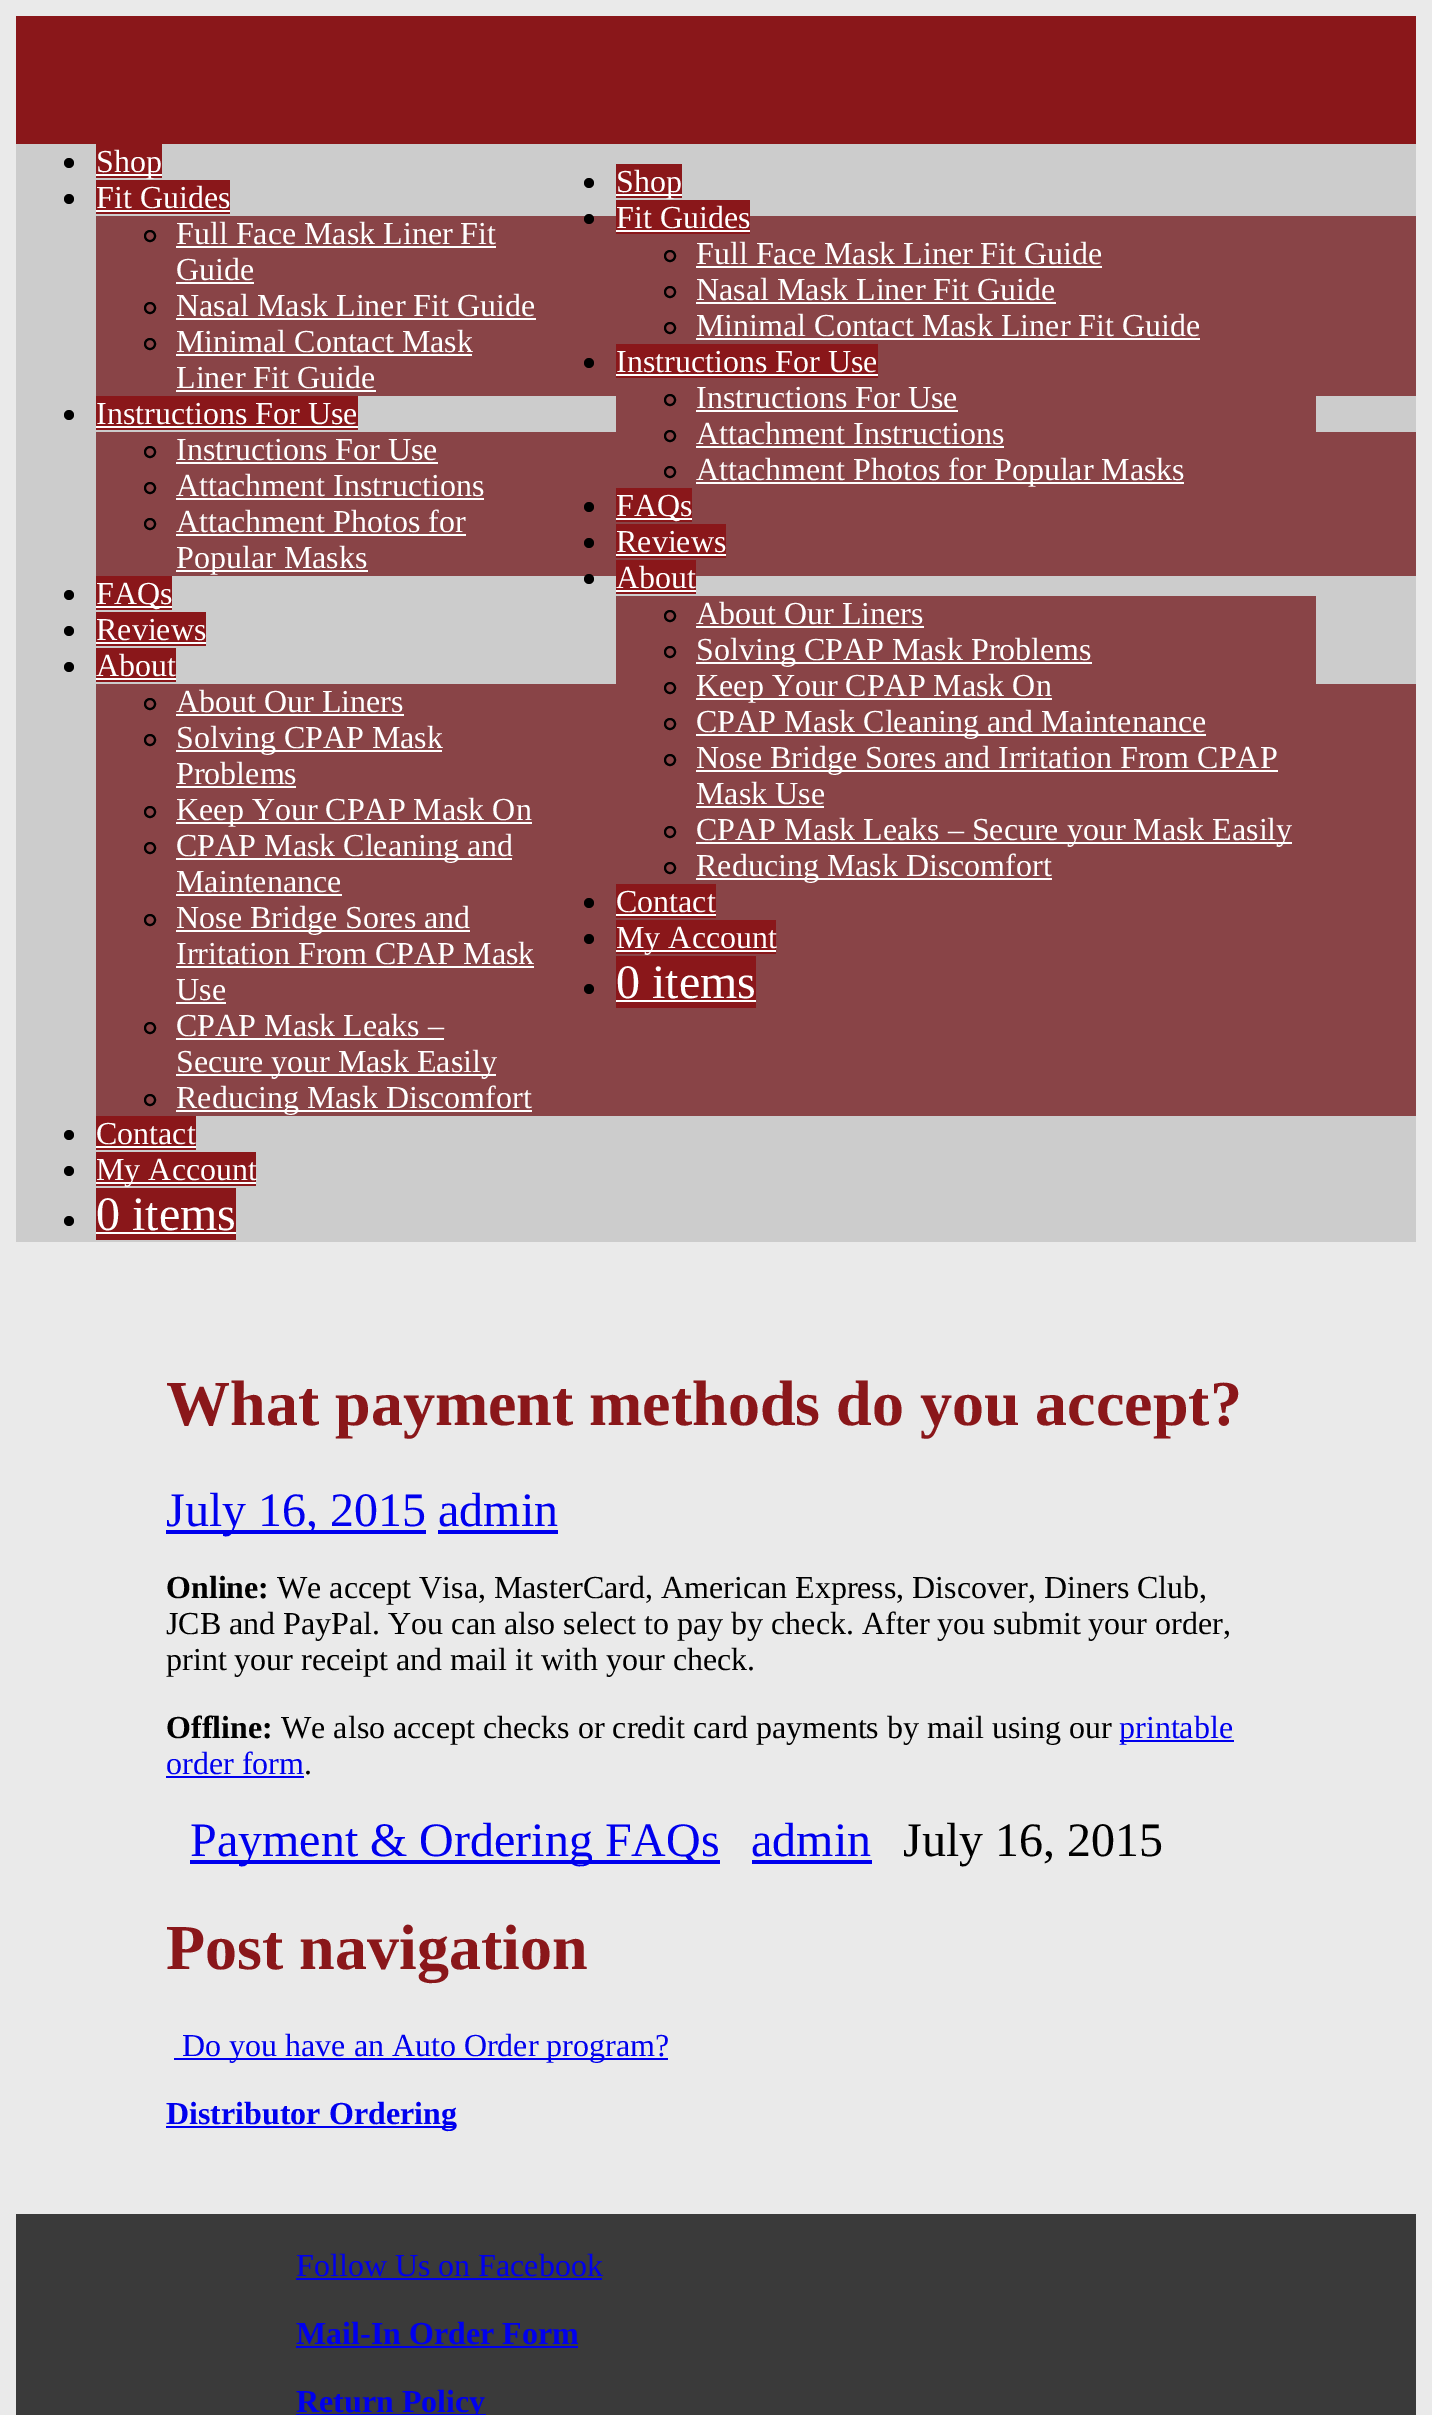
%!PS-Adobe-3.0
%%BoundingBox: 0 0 1432 2415
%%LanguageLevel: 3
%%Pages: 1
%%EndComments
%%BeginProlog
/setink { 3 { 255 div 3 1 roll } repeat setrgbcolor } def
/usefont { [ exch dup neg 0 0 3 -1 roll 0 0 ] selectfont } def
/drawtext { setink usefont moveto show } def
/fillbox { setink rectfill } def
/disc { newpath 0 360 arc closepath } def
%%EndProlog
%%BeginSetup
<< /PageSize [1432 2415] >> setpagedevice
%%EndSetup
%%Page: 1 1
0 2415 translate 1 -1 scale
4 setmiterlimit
0 0 1432 2415 234 234 234 fillbox
16 16 1400 128 138 23 26 fillbox
16 144 1400 1098 204 204 204 fillbox
0 0 0 setink
69 163 5 disc fill
96 144 66 34 138 23 26 fillbox
96 174 66 2 255 255 255 fillbox
(Shop) 96 172 /LiberationSerif-Regular 32 255 255 255 drawtext
0 0 0 setink
69 199 5 disc fill
96 180 134 34 138 23 26 fillbox
(Fit Guides) 96 208 /LiberationSerif-Regular 32 255 255 255 drawtext
96 210 134 2 255 255 255 fillbox
96 216 1320 180 137 68 71 fillbox
0 0 0 setink
2 setlinewidth
150 236 5 disc stroke
(Full Face Mask Liner Fit) 176 244 /LiberationSerif-Regular 32 255 255 255 drawtext
176 246 320 2 255 255 255 fillbox
(Guide) 176 280 /LiberationSerif-Regular 32 255 255 255 drawtext
176 282 78 2 255 255 255 fillbox
0 0 0 setink
150 308 5 disc stroke
(Nasal Mask Liner Fit Guide) 176 316 /LiberationSerif-Regular 32 255 255 255 drawtext
176 318 360 2 255 255 255 fillbox
0 0 0 setink
150 344 5 disc stroke
(Minimal Contact Mask) 176 352 /LiberationSerif-Regular 32 255 255 255 drawtext
176 354 296 2 255 255 255 fillbox
(Liner Fit Guide) 176 388 /LiberationSerif-Regular 32 255 255 255 drawtext
176 390 200 2 255 255 255 fillbox
0 0 0 setink
69 415 5 disc fill
96 396 262 34 138 23 26 fillbox
(Instructions For Use) 96 424 /LiberationSerif-Regular 32 255 255 255 drawtext
96 426 262 2 255 255 255 fillbox
96 432 1320 144 137 68 71 fillbox
0 0 0 setink
150 452 5 disc stroke
(Instructions For Use) 176 460 /LiberationSerif-Regular 32 255 255 255 drawtext
176 462 262 2 255 255 255 fillbox
0 0 0 setink
150 488 5 disc stroke
(Attachment Instructions) 176 496 /LiberationSerif-Regular 32 255 255 255 drawtext
176 498 308 2 255 255 255 fillbox
0 0 0 setink
150 524 5 disc stroke
(Attachment Photos for) 176 532 /LiberationSerif-Regular 32 255 255 255 drawtext
176 534 290 2 255 255 255 fillbox
176 570 192 2 255 255 255 fillbox
(Popular Masks) 176 568 /LiberationSerif-Regular 32 255 255 255 drawtext
0 0 0 setink
69 595 5 disc fill
96 576 76 34 138 23 26 fillbox
96 606 76 2 255 255 255 fillbox
(FAQs) 96 604 /LiberationSerif-Regular 32 255 255 255 drawtext
0 0 0 setink
69 631 5 disc fill
96 612 110 34 138 23 26 fillbox
(Reviews) 96 640 /LiberationSerif-Regular 32 255 255 255 drawtext
96 642 110 2 255 255 255 fillbox
0 0 0 setink
69 667 5 disc fill
96 648 80 34 138 23 26 fillbox
(About) 96 676 /LiberationSerif-Regular 32 255 255 255 drawtext
96 678 80 2 255 255 255 fillbox
96 684 1320 432 137 68 71 fillbox
0 0 0 setink
150 704 5 disc stroke
(About Our Liners) 176 712 /LiberationSerif-Regular 32 255 255 255 drawtext
176 714 228 2 255 255 255 fillbox
0 0 0 setink
150 740 5 disc stroke
176 750 266 2 255 255 255 fillbox
(Solving CPAP Mask) 176 748 /LiberationSerif-Regular 32 255 255 255 drawtext
(Problems) 176 784 /LiberationSerif-Regular 32 255 255 255 drawtext
176 786 120 2 255 255 255 fillbox
0 0 0 setink
150 812 5 disc stroke
176 822 356 2 255 255 255 fillbox
(Keep Your CPAP Mask On) 176 820 /LiberationSerif-Regular 32 255 255 255 drawtext
0 0 0 setink
150 848 5 disc stroke
176 858 336 2 255 255 255 fillbox
(CPAP Mask Cleaning and) 176 856 /LiberationSerif-Regular 32 255 255 255 drawtext
(Maintenance) 176 892 /LiberationSerif-Regular 32 255 255 255 drawtext
176 894 166 2 255 255 255 fillbox
0 0 0 setink
150 920 5 disc stroke
176 930 294 2 255 255 255 fillbox
(Nose Bridge Sores and) 176 928 /LiberationSerif-Regular 32 255 255 255 drawtext
(Irritation From CPAP Mask) 176 964 /LiberationSerif-Regular 32 255 255 255 drawtext
176 966 358 2 255 255 255 fillbox
(Use) 176 1000 /LiberationSerif-Regular 32 255 255 255 drawtext
176 1002 50 2 255 255 255 fillbox
0 0 0 setink
150 1028 5 disc stroke
(CPAP Mask Leaks –) 176 1036 /LiberationSerif-Regular 32 255 255 255 drawtext
176 1038 268 2 255 255 255 fillbox
176 1074 320 2 255 255 255 fillbox
(Secure your Mask Easily) 176 1072 /LiberationSerif-Regular 32 255 255 255 drawtext
0 0 0 setink
150 1100 5 disc stroke
176 1110 356 2 255 255 255 fillbox
(Reducing Mask Discomfort) 176 1108 /LiberationSerif-Regular 32 255 255 255 drawtext
0 0 0 setink
69 1135 5 disc fill
96 1116 100 34 138 23 26 fillbox
(Contact) 96 1144 /LiberationSerif-Regular 32 255 255 255 drawtext
96 1146 100 2 255 255 255 fillbox
0 0 0 setink
69 1171 5 disc fill
96 1152 160 34 138 23 26 fillbox
96 1182 160 2 255 255 255 fillbox
(My Account) 96 1180 /LiberationSerif-Regular 32 255 255 255 drawtext
0 0 0 setink
69 1221 5 disc fill
96 1188 140 52 138 23 26 fillbox
(0 items) 96 1230 /LiberationSerif-Regular 48 255 255 255 drawtext
96 1232 140 2 255 255 255 fillbox
0 0 0 setink
589 183 5 disc fill
616 164 66 34 138 23 26 fillbox
616 194 66 2 255 255 255 fillbox
(Shop) 616 192 /LiberationSerif-Regular 32 255 255 255 drawtext
0 0 0 setink
589 219 5 disc fill
616 200 134 34 138 23 26 fillbox
(Fit Guides) 616 228 /LiberationSerif-Regular 32 255 255 255 drawtext
616 230 134 2 255 255 255 fillbox
0 0 0 setink
670 256 5 disc stroke
(Full Face Mask Liner Fit Guide) 696 264 /LiberationSerif-Regular 32 255 255 255 drawtext
696 266 406 2 255 255 255 fillbox
0 0 0 setink
670 292 5 disc stroke
(Nasal Mask Liner Fit Guide) 696 300 /LiberationSerif-Regular 32 255 255 255 drawtext
696 302 360 2 255 255 255 fillbox
0 0 0 setink
670 328 5 disc stroke
(Minimal Contact Mask Liner Fit Guide) 696 336 /LiberationSerif-Regular 32 255 255 255 drawtext
696 338 504 2 255 255 255 fillbox
0 0 0 setink
589 363 5 disc fill
616 344 262 34 138 23 26 fillbox
(Instructions For Use) 616 372 /LiberationSerif-Regular 32 255 255 255 drawtext
616 374 262 2 255 255 255 fillbox
616 396 700 36 137 68 71 fillbox
0 0 0 setink
670 400 5 disc stroke
(Instructions For Use) 696 408 /LiberationSerif-Regular 32 255 255 255 drawtext
696 410 262 2 255 255 255 fillbox
0 0 0 setink
670 436 5 disc stroke
(Attachment Instructions) 696 444 /LiberationSerif-Regular 32 255 255 255 drawtext
696 446 308 2 255 255 255 fillbox
0 0 0 setink
670 472 5 disc stroke
696 482 488 2 255 255 255 fillbox
(Attachment Photos for Popular Masks) 696 480 /LiberationSerif-Regular 32 255 255 255 drawtext
0 0 0 setink
589 507 5 disc fill
616 488 76 34 138 23 26 fillbox
616 518 76 2 255 255 255 fillbox
(FAQs) 616 516 /LiberationSerif-Regular 32 255 255 255 drawtext
0 0 0 setink
589 543 5 disc fill
616 524 110 34 138 23 26 fillbox
(Reviews) 616 552 /LiberationSerif-Regular 32 255 255 255 drawtext
616 554 110 2 255 255 255 fillbox
0 0 0 setink
589 579 5 disc fill
616 560 80 34 138 23 26 fillbox
(About) 616 588 /LiberationSerif-Regular 32 255 255 255 drawtext
616 590 80 2 255 255 255 fillbox
616 596 700 88 137 68 71 fillbox
0 0 0 setink
670 616 5 disc stroke
(About Our Liners) 696 624 /LiberationSerif-Regular 32 255 255 255 drawtext
696 626 228 2 255 255 255 fillbox
0 0 0 setink
670 652 5 disc stroke
696 662 396 2 255 255 255 fillbox
(Solving CPAP Mask Problems) 696 660 /LiberationSerif-Regular 32 255 255 255 drawtext
0 0 0 setink
670 688 5 disc stroke
696 698 356 2 255 255 255 fillbox
(Keep Your CPAP Mask On) 696 696 /LiberationSerif-Regular 32 255 255 255 drawtext
0 0 0 setink
670 724 5 disc stroke
696 734 510 2 255 255 255 fillbox
(CPAP Mask Cleaning and Maintenance) 696 732 /LiberationSerif-Regular 32 255 255 255 drawtext
0 0 0 setink
670 760 5 disc stroke
696 770 582 2 255 255 255 fillbox
(Nose Bridge Sores and Irritation From CPAP) 696 768 /LiberationSerif-Regular 32 255 255 255 drawtext
(Mask Use) 696 804 /LiberationSerif-Regular 32 255 255 255 drawtext
696 806 128 2 255 255 255 fillbox
0 0 0 setink
670 832 5 disc stroke
696 842 596 2 255 255 255 fillbox
(CPAP Mask Leaks – Secure your Mask Easily) 696 840 /LiberationSerif-Regular 32 255 255 255 drawtext
0 0 0 setink
670 868 5 disc stroke
696 878 356 2 255 255 255 fillbox
(Reducing Mask Discomfort) 696 876 /LiberationSerif-Regular 32 255 255 255 drawtext
0 0 0 setink
589 903 5 disc fill
616 884 100 34 138 23 26 fillbox
(Contact) 616 912 /LiberationSerif-Regular 32 255 255 255 drawtext
616 914 100 2 255 255 255 fillbox
0 0 0 setink
589 939 5 disc fill
616 920 160 34 138 23 26 fillbox
616 950 160 2 255 255 255 fillbox
(My Account) 616 948 /LiberationSerif-Regular 32 255 255 255 drawtext
0 0 0 setink
589 989 5 disc fill
616 956 140 52 138 23 26 fillbox
(0 items) 616 998 /LiberationSerif-Regular 48 255 255 255 drawtext
616 1000 140 2 255 255 255 fillbox
(What payment methods do you accept?) 166 1425 /LiberationSerif-Bold 64 138 23 26 drawtext
166 1530 260 4 0 0 238 fillbox
(July 16, 2015 admin) 166 1526 /LiberationSerif-Regular 48 0 0 238 drawtext
438 1530 120 4 0 0 238 fillbox
(Online:) 166 1598 /LiberationSerif-Bold 32 0 0 0 drawtext
(We accept Visa, MasterCard, American Express, Discover, Diners Club,) 277 1598 /LiberationSerif-Regular 32 0 0 0 drawtext
(JCB and PayPal. You can also select to pay by check. After you submit your order,) 166 1634 /LiberationSerif-Regular 32 0 0 0 drawtext
(print your receipt and mail it with your check.) 166 1670 /LiberationSerif-Regular 32 0 0 0 drawtext
(Offline:) 166 1738 /LiberationSerif-Bold 32 0 0 0 drawtext
(We also accept checks or credit card payments by mail using our) 281 1738 /LiberationSerif-Regular 32 0 0 0 drawtext
1120 1740 114 2 0 0 238 fillbox
(printable) 1119 1738 /LiberationSerif-Regular 32 0 0 238 drawtext
(order form) 166 1774 /LiberationSerif-Regular 32 0 0 238 drawtext
166 1776 138 2 0 0 238 fillbox
(.) 304 1774 /LiberationSerif-Regular 32 0 0 0 drawtext
190 1860 530 4 0 0 238 fillbox
(Payment & Ordering FAQs) 190 1856 /LiberationSerif-Regular 48 0 0 238 drawtext
(admin) 751 1856 /LiberationSerif-Regular 48 0 0 238 drawtext
752 1860 120 4 0 0 238 fillbox
(July 16, 2015) 903 1856 /LiberationSerif-Regular 48 0 0 0 drawtext
(Post navigation) 166 1969 /LiberationSerif-Bold 64 138 23 26 drawtext
174 2058 494 2 0 0 238 fillbox
(Do you have an Auto Order program?) 182 2056 /LiberationSerif-Regular 32 0 0 238 drawtext
166 2126 290 2 0 0 238 fillbox
(Distributor Ordering) 166 2124 /LiberationSerif-Bold 32 0 0 238 drawtext
16 2214 1400 201 58 58 58 fillbox
(Follow Us on Facebook) 296 2276 /LiberationSerif-Regular 32 0 0 238 drawtext
296 2278 306 2 0 0 238 fillbox
(Mail-In Order Form) 296 2344 /LiberationSerif-Bold 32 0 0 238 drawtext
296 2346 282 2 0 0 238 fillbox
296 2414 190 1 0 0 238 fillbox
(Return Policy) 296 2412 /LiberationSerif-Bold 32 0 0 238 drawtext
showpage
%%EOF
